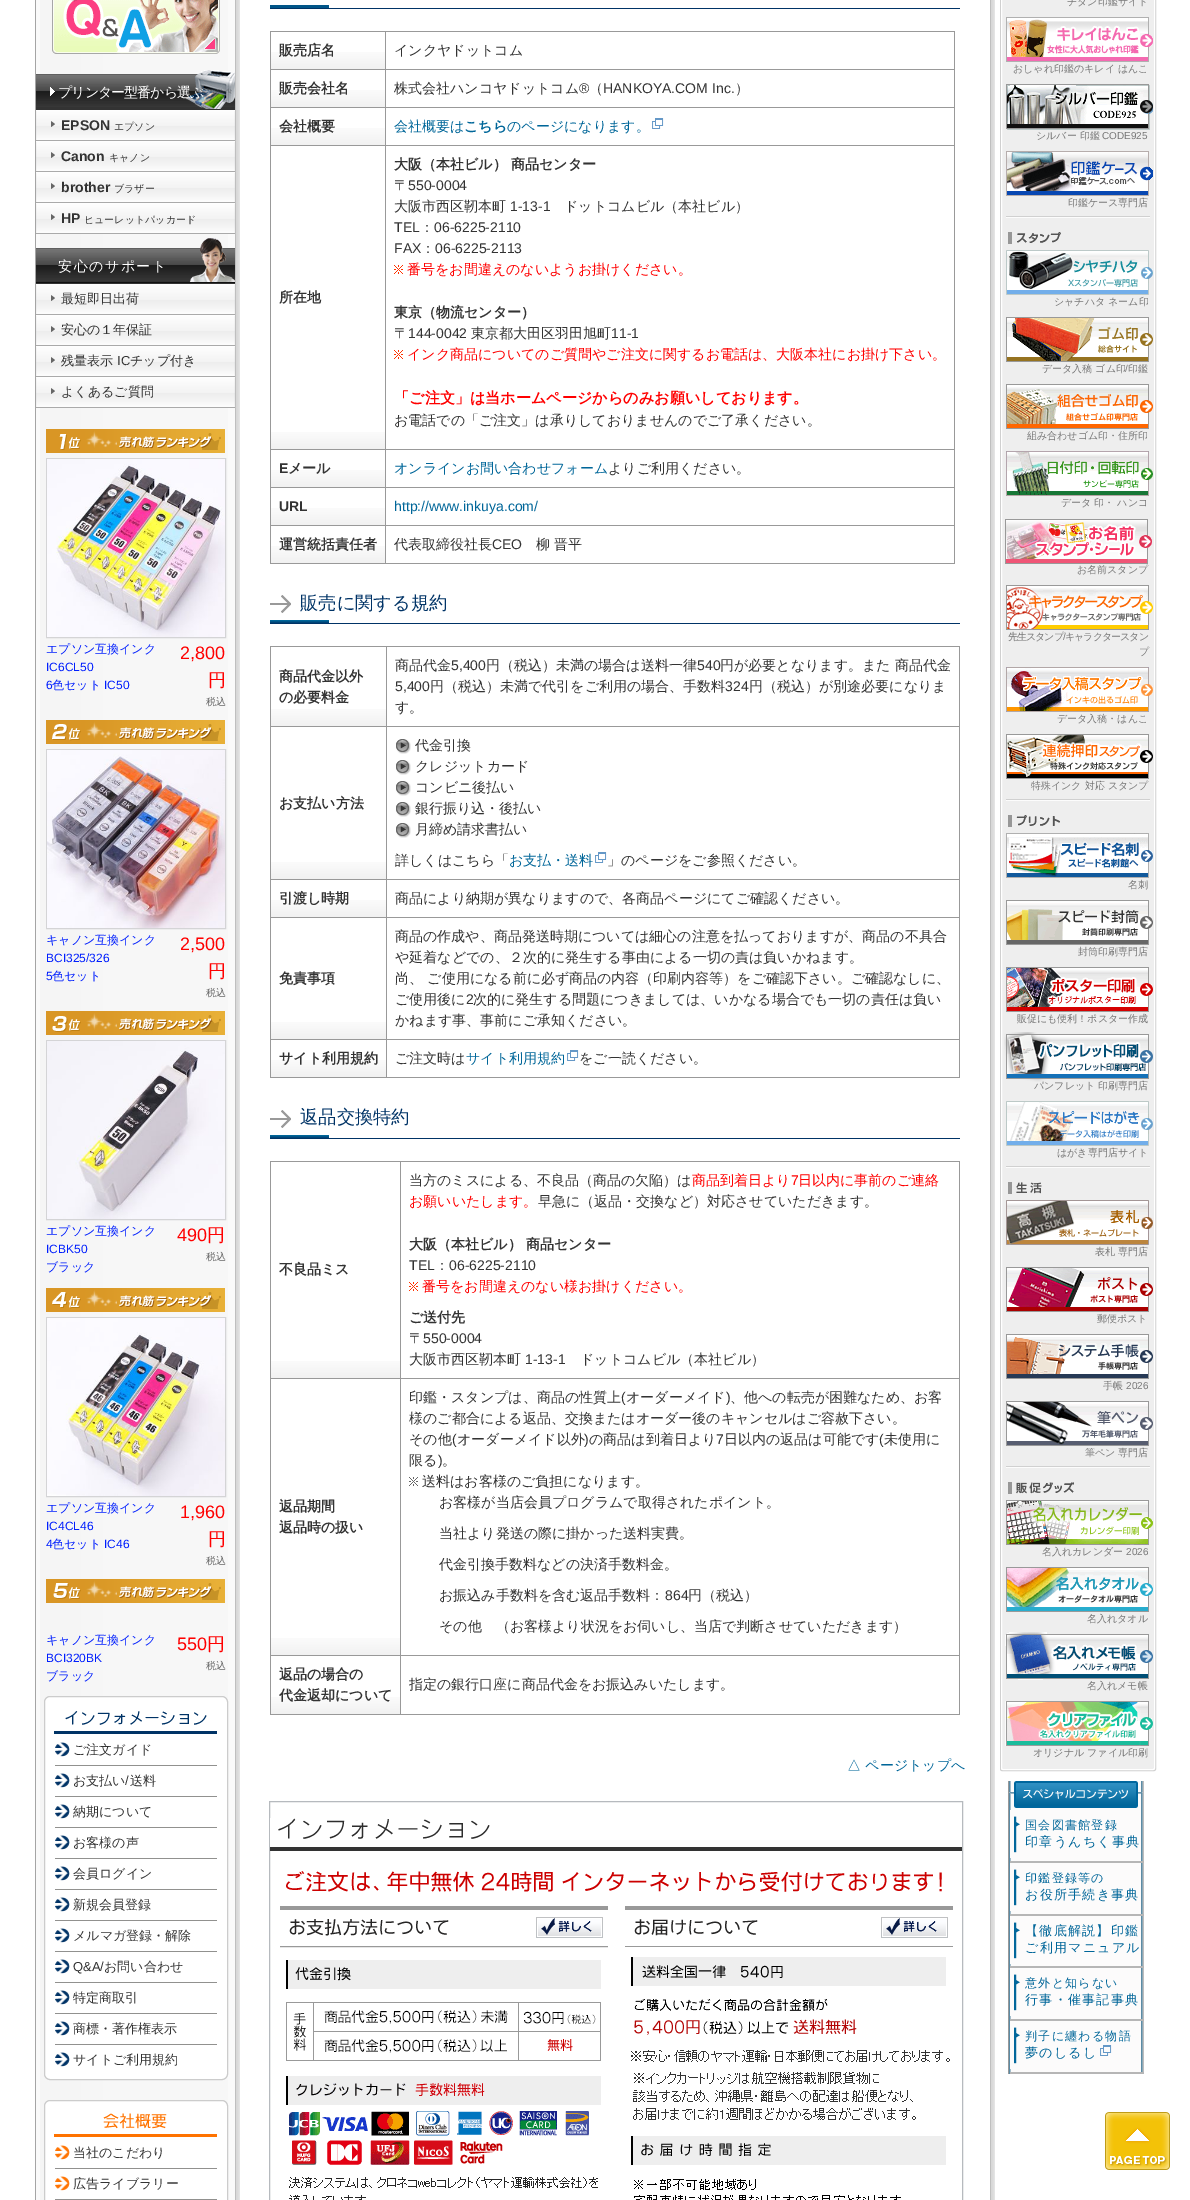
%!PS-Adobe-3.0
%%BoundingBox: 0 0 1190 2200
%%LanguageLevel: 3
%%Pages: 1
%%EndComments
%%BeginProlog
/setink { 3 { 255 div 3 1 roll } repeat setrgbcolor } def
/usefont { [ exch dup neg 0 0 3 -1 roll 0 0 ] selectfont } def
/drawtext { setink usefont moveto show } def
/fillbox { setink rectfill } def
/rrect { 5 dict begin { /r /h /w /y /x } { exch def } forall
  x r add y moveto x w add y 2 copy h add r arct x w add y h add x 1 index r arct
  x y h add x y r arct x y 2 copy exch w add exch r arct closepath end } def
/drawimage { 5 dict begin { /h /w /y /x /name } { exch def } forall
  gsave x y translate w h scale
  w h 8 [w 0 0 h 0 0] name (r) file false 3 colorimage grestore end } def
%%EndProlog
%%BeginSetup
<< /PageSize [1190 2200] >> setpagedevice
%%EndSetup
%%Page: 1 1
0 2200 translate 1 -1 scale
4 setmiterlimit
0 0 1190 2200 255 255 255 fillbox
(assets/img1.rgb) 35 0 960 2200 drawimage
(assets/img2.rgb) 52 0 168 54 drawimage
36 109 199 1 51 51 51 fillbox
(assets/img3.rgb) 36 70 199 39 drawimage
/WenQuanYiZenHei-Medium 14 usefont
255 255 255 setink
58 97 moveto -1 0 (プリンター型番から選ぶ) ashow
36 140 199 1 170 170 170 fillbox
(assets/img4.rgb) 36 110 199 30 drawimage
(EPSON) 61 130 /LiberationSans-Bold 14 51 51 51 drawtext
(エプソン) 114 130 /WenQuanYiZenHei-Medium 10 51 51 51 drawtext
36 171 199 1 170 170 170 fillbox
(assets/img4.rgb) 36 141 199 30 drawimage
(Canon) 61 161 /LiberationSans-Bold 14 51 51 51 drawtext
(キャノン) 109 161 /WenQuanYiZenHei-Medium 10 51 51 51 drawtext
36 202 199 1 170 170 170 fillbox
(assets/img4.rgb) 36 172 199 30 drawimage
(brother) 61 192 /LiberationSans-Bold 14 51 51 51 drawtext
(ブラザー) 114 192 /WenQuanYiZenHei-Medium 10 51 51 51 drawtext
36 233 199 1 170 170 170 fillbox
(assets/img4.rgb) 36 203 199 30 drawimage
(HP) 61 223 /LiberationSans-Bold 14 51 51 51 drawtext
(ヒューレットパッカード) 84 223 /WenQuanYiZenHei-Medium 10 51 51 51 drawtext
(assets/img5.rgb) 36 238 199 45 drawimage
36 283 199 1 51 51 51 fillbox
/WenQuanYiZenHei-Medium 14 usefont
255 255 255 setink
58 271 moveto 1.5 0 (安心のサポート) ashow
36 314 199 1 170 170 170 fillbox
(assets/img4.rgb) 36 284 199 30 drawimage
(最短即日出荷) 61 303 /WenQuanYiZenHei-Medium 13 51 51 51 drawtext
36 345 199 1 170 170 170 fillbox
(assets/img4.rgb) 36 315 199 30 drawimage
(安心の１年保証) 61 334 /WenQuanYiZenHei-Medium 13 51 51 51 drawtext
36 376 199 1 170 170 170 fillbox
(assets/img4.rgb) 36 346 199 30 drawimage
(残量表示) 61 365 /WenQuanYiZenHei-Medium 13 51 51 51 drawtext
(IC) 117 365 /LiberationSans-Regular 13 51 51 51 drawtext
(チップ付き) 130 365 /WenQuanYiZenHei-Medium 13 51 51 51 drawtext
36 407 199 1 170 170 170 fillbox
(assets/img4.rgb) 36 377 199 30 drawimage
(よくあるご質問) 61 396 /WenQuanYiZenHei-Medium 13 51 51 51 drawtext
(assets/img6.rgb) 46 429 179 24 drawimage
(assets/img7.rgb) 59 434 22 16 drawimage
212 212 214 setink
46.5 458.5 179 179 rectstroke
(assets/img8.rgb) 47 459 178 178 drawimage
(エプソン互換インク) 46 653 /WenQuanYiZenHei-Medium 12 1 31 254 drawtext
(IC6CL50) 46 671 /LiberationSans-Regular 12 1 31 254 drawtext
(6) 46 689 /LiberationSans-Regular 12 1 31 254 drawtext
(色セット) 52 689 /WenQuanYiZenHei-Medium 12 1 31 254 drawtext
(IC50) 104 689 /LiberationSans-Regular 12 1 31 254 drawtext
(2,800) 180 659 /LiberationSans-Regular 18 255 0 0 drawtext
(円) 208 686 /WenQuanYiZenHei-Medium 18 255 0 0 drawtext
(税込) 206 705 /WenQuanYiZenHei-Medium 10 102 102 102 drawtext
(assets/img6.rgb) 46 720 179 24 drawimage
(assets/img9.rgb) 52 724 29 17 drawimage
212 212 214 setink
46.5 749.5 179 179 rectstroke
(assets/img10.rgb) 47 750 178 178 drawimage
(キャノン互換インク) 46 944 /WenQuanYiZenHei-Medium 12 1 31 254 drawtext
(BCI325/326) 46 962 /LiberationSans-Regular 12 1 31 254 drawtext
(5) 46 980 /LiberationSans-Regular 12 1 31 254 drawtext
(色セット) 52 980 /WenQuanYiZenHei-Medium 12 1 31 254 drawtext
(2,500) 180 950 /LiberationSans-Regular 18 255 0 0 drawtext
(円) 208 977 /WenQuanYiZenHei-Medium 18 255 0 0 drawtext
(税込) 206 996 /WenQuanYiZenHei-Medium 10 102 102 102 drawtext
(assets/img6.rgb) 46 1011 179 24 drawimage
(assets/img11.rgb) 52 1016 29 16 drawimage
212 212 214 setink
46.5 1040.5 179 179 rectstroke
(assets/img12.rgb) 47 1041 178 178 drawimage
(エプソン互換インク) 46 1235 /WenQuanYiZenHei-Medium 12 1 31 254 drawtext
(ICBK50) 46 1253 /LiberationSans-Regular 12 1 31 254 drawtext
(ブラック) 46 1271 /WenQuanYiZenHei-Medium 12 1 31 254 drawtext
(490) 177 1241 /LiberationSans-Regular 18 255 0 0 drawtext
(円) 207 1241 /WenQuanYiZenHei-Medium 18 255 0 0 drawtext
(税込) 206 1260 /WenQuanYiZenHei-Medium 10 102 102 102 drawtext
(assets/img6.rgb) 46 1288 179 24 drawimage
(assets/img13.rgb) 52 1292 29 17 drawimage
212 212 214 setink
46.5 1317.5 179 179 rectstroke
(assets/img14.rgb) 47 1318 178 178 drawimage
(エプソン互換インク) 46 1512 /WenQuanYiZenHei-Medium 12 1 31 254 drawtext
(IC4CL46) 46 1530 /LiberationSans-Regular 12 1 31 254 drawtext
(4) 46 1548 /LiberationSans-Regular 12 1 31 254 drawtext
(色セット) 52 1548 /WenQuanYiZenHei-Medium 12 1 31 254 drawtext
(IC46) 104 1548 /LiberationSans-Regular 12 1 31 254 drawtext
(1,960) 180 1518 /LiberationSans-Regular 18 255 0 0 drawtext
(円) 208 1545 /WenQuanYiZenHei-Medium 18 255 0 0 drawtext
(税込) 206 1564 /WenQuanYiZenHei-Medium 10 102 102 102 drawtext
(assets/img6.rgb) 46 1579 179 24 drawimage
(assets/img15.rgb) 53 1583 28 17 drawimage
(キャノン互換インク) 46 1644 /WenQuanYiZenHei-Medium 12 1 31 254 drawtext
(BCI320BK) 46 1662 /LiberationSans-Regular 12 1 31 254 drawtext
(ブラック) 46 1680 /WenQuanYiZenHei-Medium 12 1 31 254 drawtext
(550) 177 1650 /LiberationSans-Regular 18 255 0 0 drawtext
(円) 207 1650 /WenQuanYiZenHei-Medium 18 255 0 0 drawtext
(税込) 206 1669 /WenQuanYiZenHei-Medium 10 102 102 102 drawtext
255 255 255 setink
44.5 1696.5 183 383 5.5 rrect gsave fill grestore
204 204 204 setink
stroke
(assets/img16.rgb) 54 1711 163 23 drawimage
55 1765 162 1 145 145 143 fillbox
(assets/img17.rgb) 55 1742 15 15 drawimage
(ご注文ガイド) 73 1754 /WenQuanYiZenHei-Medium 13 51 51 51 drawtext
55 1796 162 1 145 145 143 fillbox
(assets/img17.rgb) 55 1773 15 15 drawimage
(お支払い 送料) 73 1785 /WenQuanYiZenHei-Medium 13 51 51 51 drawtext
(/) 125 1785 /LiberationSans-Regular 13 51 51 51 drawtext
55 1827 162 1 145 145 143 fillbox
(assets/img17.rgb) 55 1804 15 15 drawimage
(納期について) 73 1816 /WenQuanYiZenHei-Medium 13 51 51 51 drawtext
55 1858 162 1 145 145 143 fillbox
(assets/img17.rgb) 55 1835 15 15 drawimage
(お客様の声) 73 1847 /WenQuanYiZenHei-Medium 13 51 51 51 drawtext
55 1889 162 1 145 145 143 fillbox
(assets/img17.rgb) 55 1866 15 15 drawimage
(会員ログイン) 73 1878 /WenQuanYiZenHei-Medium 13 51 51 51 drawtext
55 1920 162 1 145 145 143 fillbox
(assets/img17.rgb) 55 1897 15 15 drawimage
(新規会員登録) 73 1909 /WenQuanYiZenHei-Medium 13 51 51 51 drawtext
55 1951 162 1 145 145 143 fillbox
(assets/img17.rgb) 55 1928 15 15 drawimage
(メルマガ登録・解除) 73 1940 /WenQuanYiZenHei-Medium 13 51 51 51 drawtext
55 1982 162 1 145 145 143 fillbox
(assets/img17.rgb) 55 1959 15 15 drawimage
(Q&A/) 73 1971 /LiberationSans-Regular 13 51 51 51 drawtext
(お問い合わせ) 104 1971 /WenQuanYiZenHei-Medium 13 51 51 51 drawtext
55 2013 162 1 145 145 143 fillbox
(assets/img17.rgb) 55 1990 15 15 drawimage
(特定商取引) 73 2002 /WenQuanYiZenHei-Medium 13 51 51 51 drawtext
55 2044 162 1 145 145 143 fillbox
(assets/img17.rgb) 55 2021 15 15 drawimage
(商標・著作権表示) 73 2033 /WenQuanYiZenHei-Medium 13 51 51 51 drawtext
(assets/img17.rgb) 55 2052 15 15 drawimage
(サイトご利用規約) 73 2064 /WenQuanYiZenHei-Medium 13 51 51 51 drawtext
255 255 255 setink
44.5 2100.5 183 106 5.5 rrect gsave fill grestore
204 204 204 setink
stroke
(assets/img18.rgb) 54 2113 163 24 drawimage
55 2168 162 1 145 145 143 fillbox
(assets/img19.rgb) 55 2145 15 15 drawimage
(当社のこだわり) 73 2157 /WenQuanYiZenHei-Medium 13 51 51 51 drawtext
55 2199 162 1 145 145 143 fillbox
(assets/img19.rgb) 55 2176 15 15 drawimage
(広告ライブラリー) 73 2188 /WenQuanYiZenHei-Medium 13 51 51 51 drawtext
270 5 59 3 0 85 136 fillbox
270 8 690 1 0 51 102 fillbox
270 31 685 1 153 153 153 fillbox
954 31 1 533 153 153 153 fillbox
270 563 685 1 153 153 153 fillbox
270 31 1 533 153 153 153 fillbox
(assets/img20.rgb) 271 52 114 17 drawimage
(販売店名) 279 55 /WenQuanYiZenHei-Bold 14 51 51 51 drawtext
385 69 570 1 153 153 153 fillbox
385 107 570 1 153 153 153 fillbox
385 145 570 1 153 153 153 fillbox
385 449 570 1 153 153 153 fillbox
385 487 570 1 153 153 153 fillbox
385 525 570 1 153 153 153 fillbox
385 525 1 39 153 153 153 fillbox
270 525 116 1 153 153 153 fillbox
385 487 1 39 153 153 153 fillbox
270 487 116 1 153 153 153 fillbox
385 449 1 39 153 153 153 fillbox
270 449 116 1 153 153 153 fillbox
385 145 1 305 153 153 153 fillbox
270 145 116 1 153 153 153 fillbox
385 107 1 39 153 153 153 fillbox
270 107 116 1 153 153 153 fillbox
385 69 1 39 153 153 153 fillbox
270 69 116 1 153 153 153 fillbox
385 31 1 39 153 153 153 fillbox
(インクヤドットコム) 394 55 /WenQuanYiZenHei-Medium 14 51 51 51 drawtext
(assets/img20.rgb) 271 90 114 17 drawimage
(販売会社名) 279 93 /WenQuanYiZenHei-Bold 14 51 51 51 drawtext
(株式会社ハンコヤドットコム) 394 93 /WenQuanYiZenHei-Medium 14 51 51 51 drawtext
(®) 579 93 /LiberationSans-Regular 14 51 51 51 drawtext
(（) 589 93 /WenQuanYiZenHei-Medium 14 51 51 51 drawtext
(HANKOYA.COM Inc.) 603 93 /LiberationSans-Regular 14 51 51 51 drawtext
(）) 735 93 /WenQuanYiZenHei-Medium 14 51 51 51 drawtext
(assets/img20.rgb) 271 128 114 17 drawimage
(会社概要) 279 131 /WenQuanYiZenHei-Bold 14 51 51 51 drawtext
(会社概要は) 394 131 /WenQuanYiZenHei-Medium 14 0 102 153 drawtext
(こちら) 464 131 /WenQuanYiZenHei-Bold 14 0 102 153 drawtext
(のページになります。) 507 131 /WenQuanYiZenHei-Medium 14 0 102 153 drawtext
(assets/img21.rgb) 652 118 12 11 drawimage
(assets/img20.rgb) 271 432 114 17 drawimage
(所在地) 279 302 /WenQuanYiZenHei-Bold 14 51 51 51 drawtext
(大阪（本社ビル） 商品センター) 394 169 /WenQuanYiZenHei-Bold 14 51 51 51 drawtext
(〒) 394 190 /WenQuanYiZenHei-Medium 14 51 51 51 drawtext
(550-0004) 408 190 /LiberationSans-Regular 14 51 51 51 drawtext
(大阪市西区靭本町) 394 211 /WenQuanYiZenHei-Medium 14 51 51 51 drawtext
(1-13-1) 510 211 /LiberationSans-Regular 14 51 51 51 drawtext
(ドットコムビル（本社ビル）) 564 211 /WenQuanYiZenHei-Medium 14 51 51 51 drawtext
(TEL) 394 232 /LiberationSans-Regular 14 51 51 51 drawtext
(：) 420 232 /WenQuanYiZenHei-Medium 14 51 51 51 drawtext
(06-6225-2110) 434 232 /LiberationSans-Regular 14 51 51 51 drawtext
(FAX) 394 253 /LiberationSans-Regular 14 51 51 51 drawtext
(：) 421 253 /WenQuanYiZenHei-Medium 14 51 51 51 drawtext
(06-6225-2113) 435 253 /LiberationSans-Regular 14 51 51 51 drawtext
(assets/img22.rgb) 394 265 9 9 drawimage
(番号をお間違えのないようお掛けください。) 407 274 /WenQuanYiZenHei-Medium 14 255 0 0 drawtext
(東京（物流センター）) 394 317 /WenQuanYiZenHei-Bold 14 51 51 51 drawtext
(〒) 394 338 /WenQuanYiZenHei-Medium 14 51 51 51 drawtext
(144-0042) 408 338 /LiberationSans-Regular 14 51 51 51 drawtext
(東京都大田区羽田旭町) 471 338 /WenQuanYiZenHei-Medium 14 51 51 51 drawtext
(11-1) 611 338 /LiberationSans-Regular 14 51 51 51 drawtext
(assets/img22.rgb) 394 350 9 9 drawimage
(インク商品についてのご質問やご注文に関するお電話は、大阪本社にお掛け下さい。) 407 359 /WenQuanYiZenHei-Medium 14 255 0 0 drawtext
(「ご注文」は当ホームページからのみお願いしております。) 394 403 /WenQuanYiZenHei-Bold 15.1 255 0 0 drawtext
(お電話での「ご注文」は承りしておりませんのでご了承ください。) 394 425 /WenQuanYiZenHei-Medium 14 51 51 51 drawtext
(assets/img20.rgb) 271 470 114 17 drawimage
(E) 279 473 /LiberationSans-Bold 14 51 51 51 drawtext
(メール) 288 473 /WenQuanYiZenHei-Bold 14 51 51 51 drawtext
(オンラインお問い合わせフォーム) 394 473 /WenQuanYiZenHei-Medium 14 0 102 153 drawtext
(よりご利用ください。) 608 473 /WenQuanYiZenHei-Medium 14 51 51 51 drawtext
(assets/img20.rgb) 271 508 114 17 drawimage
(URL) 279 511 /LiberationSans-Bold 14 51 51 51 drawtext
(http://www.inkuya.com/) 394 511 /LiberationSans-Regular 14 0 102 153 drawtext
(assets/img20.rgb) 271 546 114 17 drawimage
(運営統括責任者) 279 549 /WenQuanYiZenHei-Bold 14 51 51 51 drawtext
(代表取締役社長) 394 549 /WenQuanYiZenHei-Medium 14 51 51 51 drawtext
(CEO) 492 549 /LiberationSans-Regular 14 51 51 51 drawtext
(柳 晋平) 536 549 /WenQuanYiZenHei-Medium 14 51 51 51 drawtext
(assets/img23.rgb) 270 595 59 28 drawimage
270 623 690 1 0 51 102 fillbox
(販売に関する規約) 300 609 /WenQuanYiZenHei-Medium 18.25 0 51 102 drawtext
270 646 690 1 153 153 153 fillbox
959 646 1 432 153 153 153 fillbox
270 1077 690 1 153 153 153 fillbox
270 646 1 432 153 153 153 fillbox
(assets/img24.rgb) 271 709 115 17 drawimage
(商品代金以外) 279 681 /WenQuanYiZenHei-Bold 14 51 51 51 drawtext
(の必要料金) 279 702 /WenQuanYiZenHei-Bold 14 51 51 51 drawtext
386 726 574 1 153 153 153 fillbox
386 879 574 1 153 153 153 fillbox
386 917 574 1 153 153 153 fillbox
386 1039 574 1 153 153 153 fillbox
386 1039 1 39 153 153 153 fillbox
270 1039 117 1 153 153 153 fillbox
386 917 1 123 153 153 153 fillbox
270 917 117 1 153 153 153 fillbox
386 879 1 39 153 153 153 fillbox
270 879 117 1 153 153 153 fillbox
386 726 1 154 153 153 153 fillbox
270 726 117 1 153 153 153 fillbox
386 646 1 81 153 153 153 fillbox
(商品代金) 395 670 /WenQuanYiZenHei-Medium 14 51 51 51 drawtext
(5,400) 451 670 /LiberationSans-Regular 14 51 51 51 drawtext
(円（税込）未満の場合は送料一律) 486 670 /WenQuanYiZenHei-Medium 14 51 51 51 drawtext
(540) 697 670 /LiberationSans-Regular 14 51 51 51 drawtext
(円が必要となります。また 商品代金) 720 670 /WenQuanYiZenHei-Medium 14 51 51 51 drawtext
(5,400) 395 691 /LiberationSans-Regular 14 51 51 51 drawtext
(円（税込）未満で代引をご利用の場合、手数料) 430 691 /WenQuanYiZenHei-Medium 14 51 51 51 drawtext
(324) 725 691 /LiberationSans-Regular 14 51 51 51 drawtext
(円（税込）が別途必要になりま) 749 691 /WenQuanYiZenHei-Medium 14 51 51 51 drawtext
(す。) 395 712 /WenQuanYiZenHei-Medium 14 51 51 51 drawtext
(assets/img24.rgb) 271 862 115 17 drawimage
(お支払い方法) 279 808 /WenQuanYiZenHei-Bold 14 51 51 51 drawtext
(assets/img25.rgb) 396 739 15 15 drawimage
(代金引換) 415 750 /WenQuanYiZenHei-Medium 14 51 51 51 drawtext
(assets/img25.rgb) 396 760 15 15 drawimage
(クレジットカード) 415 771 /WenQuanYiZenHei-Medium 14 51 51 51 drawtext
(assets/img25.rgb) 396 781 15 15 drawimage
(コンビニ後払い) 415 792 /WenQuanYiZenHei-Medium 14 51 51 51 drawtext
(assets/img25.rgb) 396 802 15 15 drawimage
(銀行振り込・後払い) 415 813 /WenQuanYiZenHei-Medium 14 51 51 51 drawtext
(assets/img25.rgb) 396 823 15 15 drawimage
(月締め請求書払い) 415 834 /WenQuanYiZenHei-Medium 14 51 51 51 drawtext
(詳しくはこちら「) 395 865 /WenQuanYiZenHei-Medium 14 51 51 51 drawtext
(お支払・送料) 509 865 /WenQuanYiZenHei-Medium 14 0 102 153 drawtext
(assets/img21.rgb) 595 852 12 11 drawimage
(」のページをご参照ください。) 607 865 /WenQuanYiZenHei-Medium 14 51 51 51 drawtext
(assets/img24.rgb) 271 900 115 17 drawimage
(引渡し時期) 279 903 /WenQuanYiZenHei-Bold 14 51 51 51 drawtext
(商品により納期が異なりますので、各商品ページにてご確認ください。) 395 903 /WenQuanYiZenHei-Medium 14 51 51 51 drawtext
(assets/img24.rgb) 271 1022 115 17 drawimage
(免責事項) 279 983 /WenQuanYiZenHei-Bold 14 51 51 51 drawtext
(商品の作成や、商品発送時期については細心の注意を払っておりますが、商品の不具合) 395 941 /WenQuanYiZenHei-Medium 14 51 51 51 drawtext
(や延着などでの、２次的に発生する事由による一切の責は負いかねます。) 395 962 /WenQuanYiZenHei-Medium 14 51 51 51 drawtext
(尚、 ご使用になる前に必ず商品の内容（印刷内容等）をご確認下さい。ご確認なしに、) 395 983 /WenQuanYiZenHei-Medium 14 51 51 51 drawtext
(ご使用後に) 395 1004 /WenQuanYiZenHei-Medium 14 51 51 51 drawtext
(2) 466 1004 /LiberationSans-Regular 14 51 51 51 drawtext
(次的に発生する問題につきましては、いかなる場合でも一切の責任は負い) 473 1004 /WenQuanYiZenHei-Medium 14 51 51 51 drawtext
(かねます事、事前にご承知ください。) 395 1025 /WenQuanYiZenHei-Medium 14 51 51 51 drawtext
(assets/img24.rgb) 271 1060 115 17 drawimage
(サイト利用規約) 279 1063 /WenQuanYiZenHei-Bold 14 51 51 51 drawtext
(ご注文時は) 395 1063 /WenQuanYiZenHei-Medium 14 51 51 51 drawtext
(サイト利用規約) 466 1063 /WenQuanYiZenHei-Medium 14 0 102 153 drawtext
(assets/img21.rgb) 567 1050 12 11 drawimage
(をご一読ください。) 579 1063 /WenQuanYiZenHei-Medium 14 51 51 51 drawtext
(assets/img23.rgb) 270 1110 59 28 drawimage
270 1138 690 1 0 51 102 fillbox
(返品交換特約) 300 1123 /WenQuanYiZenHei-Medium 18.25 0 51 102 drawtext
270 1161 690 1 153 153 153 fillbox
959 1161 1 554 153 153 153 fillbox
270 1714 690 1 153 153 153 fillbox
270 1161 1 554 153 153 153 fillbox
(assets/img26.rgb) 271 1361 129 17 drawimage
(不良品ミス) 279 1274 /WenQuanYiZenHei-Bold 14 51 51 51 drawtext
400 1378 560 1 153 153 153 fillbox
400 1655 560 1 153 153 153 fillbox
400 1655 1 60 153 153 153 fillbox
270 1655 131 1 153 153 153 fillbox
400 1378 1 278 153 153 153 fillbox
270 1378 131 1 153 153 153 fillbox
400 1161 1 218 153 153 153 fillbox
(当方のミスによる、不良品（商品の欠陥）は) 409 1185 /WenQuanYiZenHei-Medium 14 51 51 51 drawtext
(商品到着日より) 692 1185 /WenQuanYiZenHei-Medium 14 255 0 0 drawtext
(7) 791 1185 /LiberationSans-Regular 14 255 0 0 drawtext
(日以内に事前のご連絡) 798 1185 /WenQuanYiZenHei-Medium 14 255 0 0 drawtext
(お願いいたします。) 409 1206 /WenQuanYiZenHei-Medium 14 255 0 0 drawtext
(早急に（返品・交換など）対応させていただきます。) 538 1206 /WenQuanYiZenHei-Medium 14 51 51 51 drawtext
(大阪（本社ビル） 商品センター) 409 1249 /WenQuanYiZenHei-Bold 14 51 51 51 drawtext
(TEL) 409 1270 /LiberationSans-Regular 14 51 51 51 drawtext
(：) 435 1270 /WenQuanYiZenHei-Medium 14 51 51 51 drawtext
(06-6225-2110) 449 1270 /LiberationSans-Regular 14 51 51 51 drawtext
(assets/img22.rgb) 409 1282 9 9 drawimage
(番号をお間違えのない様お掛けください。) 422 1291 /WenQuanYiZenHei-Medium 14 255 0 0 drawtext
(ご送付先) 409 1322 /WenQuanYiZenHei-Bold 14 51 51 51 drawtext
(〒) 409 1343 /WenQuanYiZenHei-Medium 14 51 51 51 drawtext
(550-0004) 423 1343 /LiberationSans-Regular 14 51 51 51 drawtext
(大阪市西区靭本町) 409 1364 /WenQuanYiZenHei-Medium 14 51 51 51 drawtext
(1-13-1) 525 1364 /LiberationSans-Regular 14 51 51 51 drawtext
(ドットコムビル（本社ビル）) 580 1364 /WenQuanYiZenHei-Medium 14 51 51 51 drawtext
(assets/img26.rgb) 271 1638 129 17 drawimage
(返品期間) 279 1511 /WenQuanYiZenHei-Bold 14 51 51 51 drawtext
(返品時の扱い) 279 1532 /WenQuanYiZenHei-Bold 14 51 51 51 drawtext
(印鑑・スタンプは、商品の性質上) 409 1402 /WenQuanYiZenHei-Medium 14 51 51 51 drawtext
(\() 621 1402 /LiberationSans-Regular 14 51 51 51 drawtext
(オーダーメイド) 626 1402 /WenQuanYiZenHei-Medium 14 51 51 51 drawtext
(\)) 726 1402 /LiberationSans-Regular 14 51 51 51 drawtext
(、他への転売が困難なため、お客) 730 1402 /WenQuanYiZenHei-Medium 14 51 51 51 drawtext
(様のご都合による返品、交換またはオーダー後のキャンセルはご容赦下さい。) 409 1423 /WenQuanYiZenHei-Medium 14 51 51 51 drawtext
(その他) 409 1444 /WenQuanYiZenHei-Medium 14 51 51 51 drawtext
(\() 452 1444 /LiberationSans-Regular 14 51 51 51 drawtext
(オーダーメイド以外) 457 1444 /WenQuanYiZenHei-Medium 14 51 51 51 drawtext
(\)) 584 1444 /LiberationSans-Regular 14 51 51 51 drawtext
(の商品は到着日より) 589 1444 /WenQuanYiZenHei-Medium 14 51 51 51 drawtext
(7) 716 1444 /LiberationSans-Regular 14 51 51 51 drawtext
(日以内の返品は可能です) 724 1444 /WenQuanYiZenHei-Medium 14 51 51 51 drawtext
(\() 879 1444 /LiberationSans-Regular 14 51 51 51 drawtext
(未使用に) 884 1444 /WenQuanYiZenHei-Medium 14 51 51 51 drawtext
(限る) 409 1465 /WenQuanYiZenHei-Medium 14 51 51 51 drawtext
(\)) 438 1465 /LiberationSans-Regular 14 51 51 51 drawtext
(。) 442 1465 /WenQuanYiZenHei-Medium 14 51 51 51 drawtext
(assets/img27.rgb) 409 1477 9 9 drawimage
(送料はお客様のご負担になります。) 422 1486 /WenQuanYiZenHei-Medium 14 51 51 51 drawtext
(お客様が当店会員プログラムで取得されたポイント。) 439 1507 /WenQuanYiZenHei-Medium 14 51 51 51 drawtext
(当社より発送の際に掛かった送料実費。) 439 1538 /WenQuanYiZenHei-Medium 14 51 51 51 drawtext
(代金引換手数料などの決済手数料金。) 439 1569 /WenQuanYiZenHei-Medium 14 51 51 51 drawtext
(お振込み手数料を含む返品手数料：) 439 1600 /WenQuanYiZenHei-Medium 14 51 51 51 drawtext
(864) 665 1600 /LiberationSans-Regular 14 51 51 51 drawtext
(円（税込）) 688 1600 /WenQuanYiZenHei-Medium 14 51 51 51 drawtext
(その他　（お客様より状況をお伺いし、当店で判断させていただきます）) 439 1631 /WenQuanYiZenHei-Medium 14 51 51 51 drawtext
(assets/img26.rgb) 271 1697 129 17 drawimage
(返品の場合の) 279 1679 /WenQuanYiZenHei-Bold 14 51 51 51 drawtext
(代金返却について) 279 1700 /WenQuanYiZenHei-Bold 14 51 51 51 drawtext
(指定の銀行口座に商品代金をお振込みいたします。) 409 1689 /WenQuanYiZenHei-Medium 14 51 51 51 drawtext
(△ ページトップへ) 847 1770 /WenQuanYiZenHei-Medium 14 0 102 153 drawtext
182 186 190 setink
269.5 1801.5 693 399 rectstroke
(assets/img28.rgb) 270 1818 692 33 drawimage
(assets/img29.rgb) 286 1871 656 21 drawimage
(assets/img30.rgb) 280 1906 328 41 drawimage
(assets/img31.rgb) 280 1947 328 114 drawimage
(assets/img32.rgb) 286 2076 315 124 drawimage
(assets/img33.rgb) 625 1906 328 41 drawimage
(assets/img34.rgb) 631 1957 319 163 drawimage
(assets/img35.rgb) 631 2136 315 64 drawimage
(assets/img36.rgb) 1105 2112 65 58 drawimage
208 208 208 setink
1000.5 -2.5 155 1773 1.5 rrect stroke
238 238 238 setink
1001.5 -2.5 153 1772 1.5 rrect gsave fill grestore
255 255 255 setink
stroke
(チタン印鑑サイト) 1067 5 /WenQuanYiZenHei-Medium 10 119 119 119 drawtext
(assets/img37.rgb) 1006 17 147 45 drawimage
(おしゃれ印鑑のキレイ はんこ) 1013 72 /WenQuanYiZenHei-Medium 10 119 119 119 drawtext
(assets/img38.rgb) 1006 84 147 46 drawimage
(シルバー 印鑑) 1036 139 /WenQuanYiZenHei-Medium 10 119 119 119 drawtext
(CODE925) 1102 139 /LiberationSans-Regular 10 119 119 119 drawtext
(assets/img39.rgb) 1006 151 147 45 drawimage
(印鑑ケース専門店) 1068 206 /WenQuanYiZenHei-Medium 10 119 119 119 drawtext
(assets/img40.rgb) 1006 216 144 2 drawimage
(assets/img41.rgb) 1008 232 53 12 drawimage
(assets/img42.rgb) 1006 250 147 45 drawimage
(シャチハタ ネーム印) 1054 305 /WenQuanYiZenHei-Medium 10 119 119 119 drawtext
(assets/img43.rgb) 1006 317 147 45 drawimage
(データ入稿 ゴム印) 1042 372 /WenQuanYiZenHei-Medium 10 119 119 119 drawtext
(/) 1125 372 /LiberationSans-Regular 10 119 119 119 drawtext
(印鑑) 1128 372 /WenQuanYiZenHei-Medium 10 119 119 119 drawtext
(assets/img44.rgb) 1006 384 147 45 drawimage
(組み合わせゴム印・住所印) 1027 439 /WenQuanYiZenHei-Medium 10 119 119 119 drawtext
(assets/img45.rgb) 1006 451 147 45 drawimage
(データ 印・ ハンコ) 1061 506 /WenQuanYiZenHei-Medium 10 119 119 119 drawtext
(assets/img46.rgb) 1005 519 147 45 drawimage
(お名前スタンプ) 1077 573 /WenQuanYiZenHei-Medium 10 119 119 119 drawtext
(assets/img47.rgb) 1006 585 147 45 drawimage
1008 640 moveto -1 0 (先生スタンプ) ashow
/LiberationSans-Regular 10 usefont
1063 640 moveto -1 0 (/) ashow
/WenQuanYiZenHei-Medium 10 usefont
1065 640 moveto -1 0 (キャラクタースタン) ashow
1139 655 moveto -1 0 (プ) ashow
(assets/img48.rgb) 1006 667 147 45 drawimage
(データ入稿・はんこ) 1057 722 /WenQuanYiZenHei-Medium 10 119 119 119 drawtext
(assets/img49.rgb) 1006 734 147 45 drawimage
(特殊インク 対応 スタンプ) 1031 789 /WenQuanYiZenHei-Medium 10 119 119 119 drawtext
(assets/img40.rgb) 1006 799 144 2 drawimage
(assets/img50.rgb) 1008 815 52 12 drawimage
(assets/img51.rgb) 1006 833 147 45 drawimage
(名刺) 1128 888 /WenQuanYiZenHei-Medium 10 119 119 119 drawtext
(assets/img52.rgb) 1006 900 147 45 drawimage
(封筒印刷専門店) 1078 955 /WenQuanYiZenHei-Medium 10 119 119 119 drawtext
(assets/img53.rgb) 1006 967 147 45 drawimage
(販促にも便利！ポスター作成) 1017 1022 /WenQuanYiZenHei-Medium 10 119 119 119 drawtext
(assets/img54.rgb) 1004 1032 149 50 drawimage
(パンフレット 印刷専門店) 1034 1089 /WenQuanYiZenHei-Medium 10 119 119 119 drawtext
(assets/img55.rgb) 1006 1101 147 45 drawimage
(はがき専門店サイト) 1057 1156 /WenQuanYiZenHei-Medium 10 119 119 119 drawtext
(assets/img40.rgb) 1006 1166 144 2 drawimage
(assets/img56.rgb) 1008 1182 34 12 drawimage
(assets/img57.rgb) 1006 1200 147 45 drawimage
(表札 専門店) 1095 1255 /WenQuanYiZenHei-Medium 10 119 119 119 drawtext
(assets/img58.rgb) 1006 1267 147 45 drawimage
(郵便ポスト) 1097 1322 /WenQuanYiZenHei-Medium 10 119 119 119 drawtext
(assets/img59.rgb) 1006 1334 147 45 drawimage
(手帳) 1103 1389 /WenQuanYiZenHei-Medium 10 119 119 119 drawtext
(2026) 1126 1389 /LiberationSans-Regular 10 119 119 119 drawtext
(assets/img60.rgb) 1006 1401 147 45 drawimage
(筆ペン 専門店) 1085 1456 /WenQuanYiZenHei-Medium 10 119 119 119 drawtext
(assets/img40.rgb) 1006 1466 144 2 drawimage
(assets/img61.rgb) 1008 1482 66 12 drawimage
(assets/img62.rgb) 1006 1500 147 45 drawimage
(名入れカレンダー) 1042 1555 /WenQuanYiZenHei-Medium 10 119 119 119 drawtext
(2026) 1126 1555 /LiberationSans-Regular 10 119 119 119 drawtext
(assets/img63.rgb) 1006 1567 147 45 drawimage
(名入れタオル) 1087 1622 /WenQuanYiZenHei-Medium 10 119 119 119 drawtext
(assets/img64.rgb) 1005 1632 148 48 drawimage
(名入れメモ帳) 1087 1689 /WenQuanYiZenHei-Medium 10 119 119 119 drawtext
(assets/img65.rgb) 1005 1701 148 45 drawimage
(オリジナル ファイル印刷) 1033 1756 /WenQuanYiZenHei-Medium 10 119 119 119 drawtext
(assets/img66.rgb) 1008 1781 136 293 drawimage
(assets/img67.rgb) 1009 1781 134 27 drawimage
(assets/img68.rgb) 1010 1810 10 48 drawimage
1010 1861 134 2 182 182 182 fillbox
/WenQuanYiZenHei-Medium 12 usefont
0 102 153 setink
1025 1829 moveto 1.25 0 (国会図書館登録) ashow
/WenQuanYiZenHei-Medium 13 usefont
1025 1846 moveto 1.25 0 (印章うんちく事典) ashow
(assets/img68.rgb) 1010 1863 10 48 drawimage
1010 1914 134 2 182 182 182 fillbox
/WenQuanYiZenHei-Medium 12 usefont
0 102 153 setink
1025 1882 moveto 1.25 0 (印鑑登録等の) ashow
/WenQuanYiZenHei-Medium 13 usefont
1025 1899 moveto 1.25 0 (お役所手続き事典) ashow
(assets/img68.rgb) 1010 1916 10 48 drawimage
1010 1966 134 2 182 182 182 fillbox
0 102 153 setink
1025 1935 moveto 1.25 0 (【徹底解説】印鑑) ashow
1025 1952 moveto 1.25 0 (ご利用マニュアル) ashow
(assets/img68.rgb) 1010 1968 10 48 drawimage
1010 2019 134 2 182 182 182 fillbox
/WenQuanYiZenHei-Medium 12 usefont
0 102 153 setink
1025 1987 moveto 1.25 0 (意外と知らない) ashow
/WenQuanYiZenHei-Medium 13 usefont
1025 2004 moveto 1.25 0 (行事・催事記事典) ashow
(assets/img68.rgb) 1010 2021 10 48 drawimage
1010 2072 134 2 182 182 182 fillbox
/WenQuanYiZenHei-Medium 12 usefont
0 102 153 setink
1025 2040 moveto 1.25 0 (判子に纏わる物語) ashow
/WenQuanYiZenHei-Medium 13 usefont
1025 2057 moveto 1.25 0 (夢のしるし) ashow
(assets/img69.rgb) 1100 2045 12 11 drawimage
showpage
%%EOF
